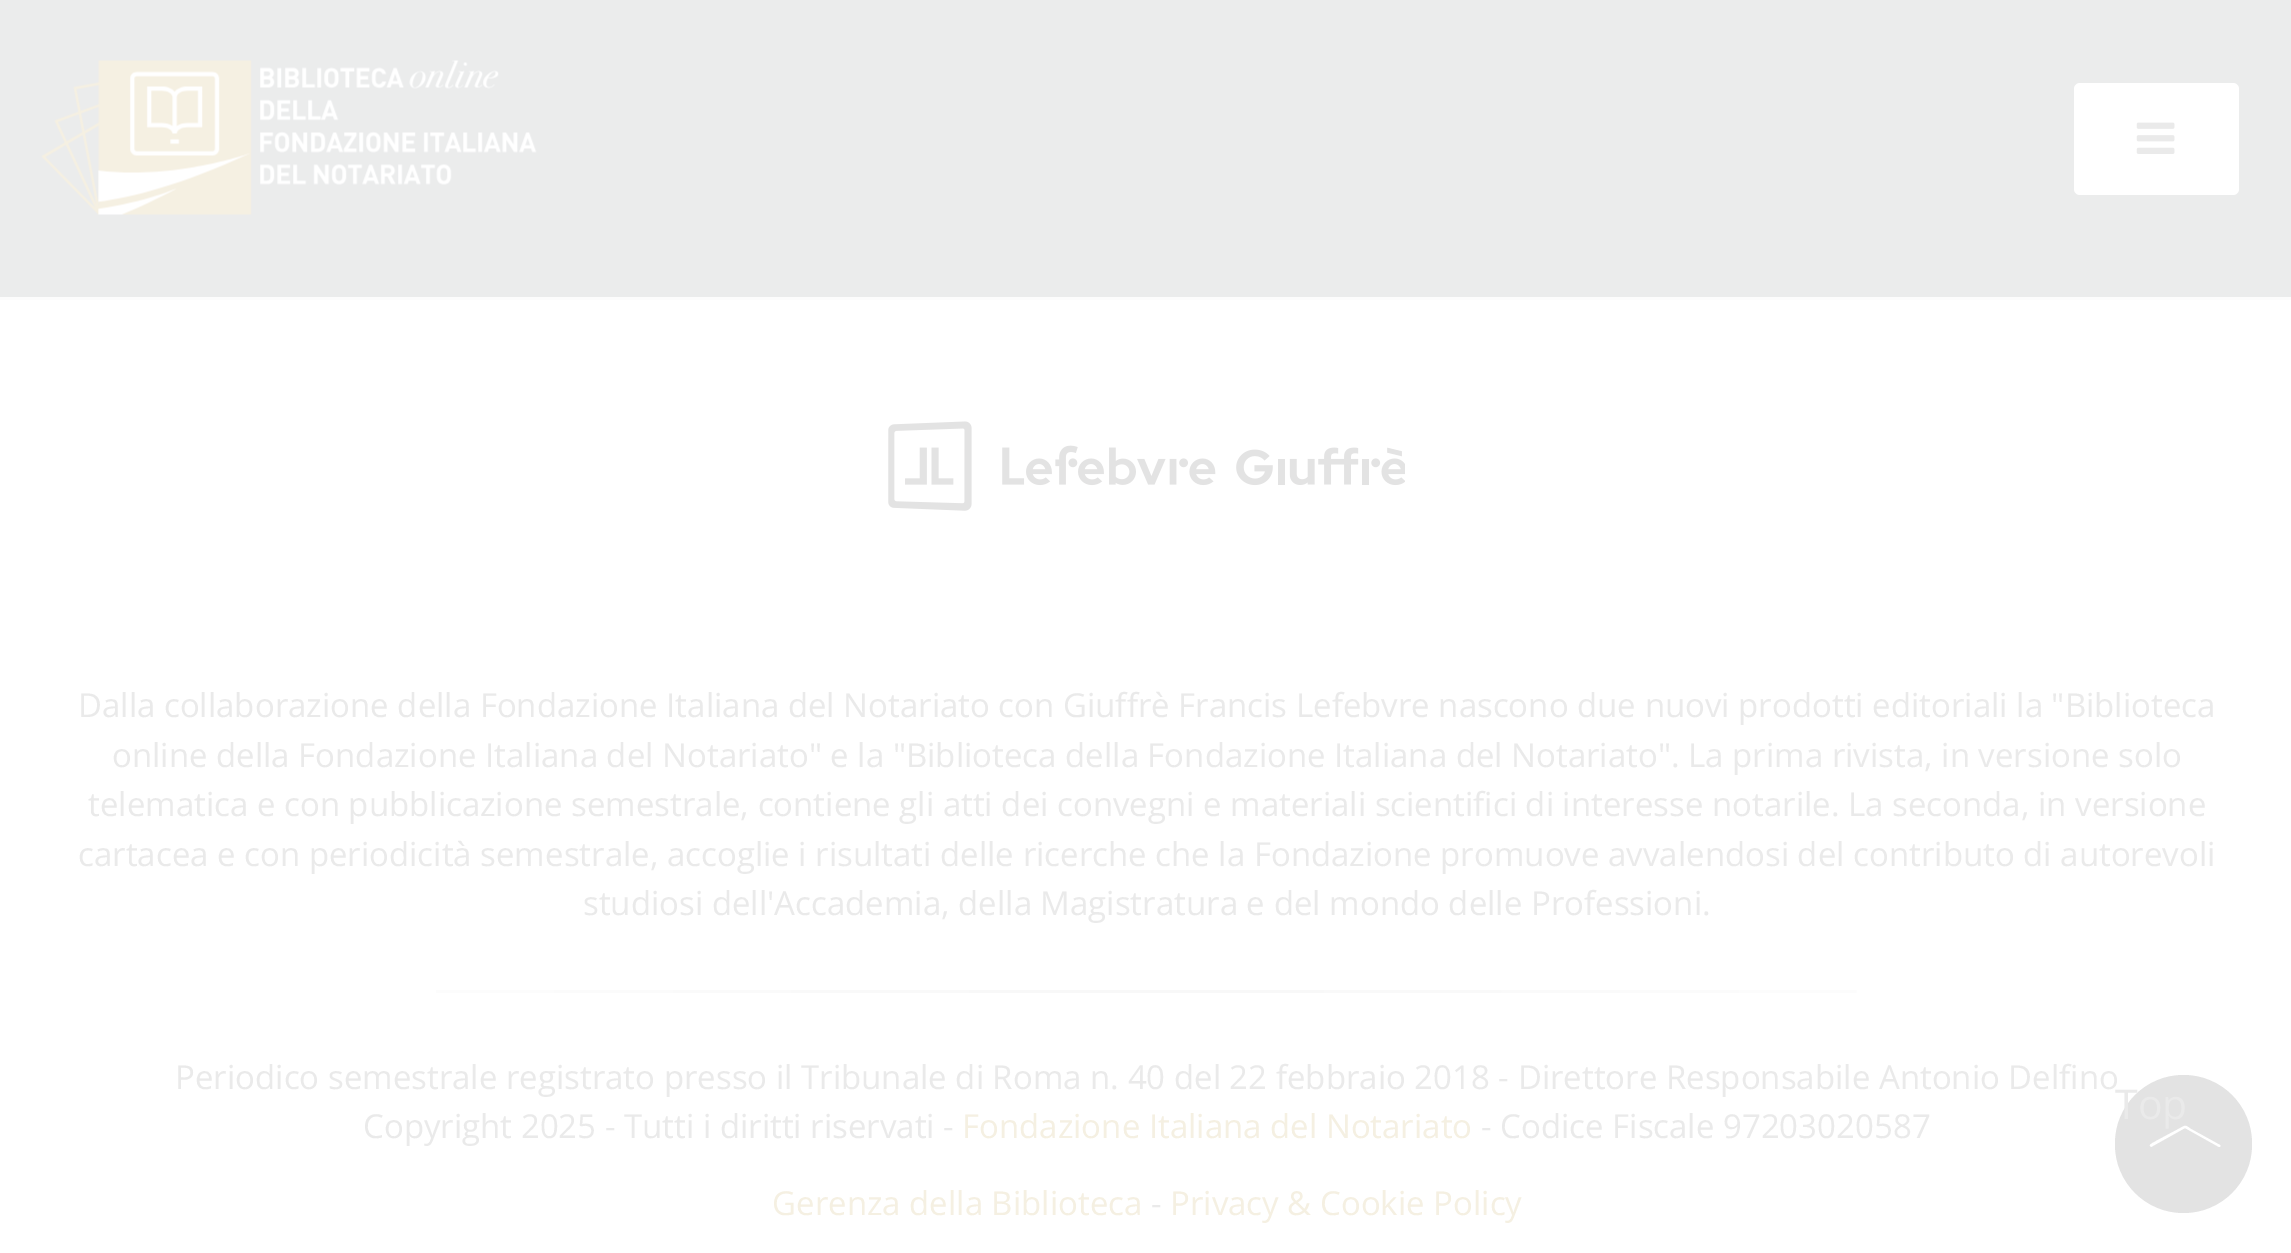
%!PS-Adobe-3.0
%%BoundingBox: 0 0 2291 1253
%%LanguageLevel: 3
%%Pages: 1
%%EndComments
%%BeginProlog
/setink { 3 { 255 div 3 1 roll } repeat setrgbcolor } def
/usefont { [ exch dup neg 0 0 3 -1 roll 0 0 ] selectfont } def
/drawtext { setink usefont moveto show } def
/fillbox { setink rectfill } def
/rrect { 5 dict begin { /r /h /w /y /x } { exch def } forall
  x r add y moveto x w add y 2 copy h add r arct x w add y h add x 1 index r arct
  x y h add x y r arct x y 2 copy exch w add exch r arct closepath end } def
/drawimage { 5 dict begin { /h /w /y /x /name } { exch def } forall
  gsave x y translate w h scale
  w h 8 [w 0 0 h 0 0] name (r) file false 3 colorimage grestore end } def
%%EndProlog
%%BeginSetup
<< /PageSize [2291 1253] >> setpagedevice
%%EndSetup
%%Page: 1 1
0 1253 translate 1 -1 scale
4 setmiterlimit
0 0 2291 1253 255 255 255 fillbox
0 0 2291 297 235 236 236 fillbox
0 297 2291 3 252 252 252 fillbox
(assets/img1.rgb) 41 60 496 155 drawimage
255 255 255 setink
2074 83 165 112 6 rrect fill
(assets/img2.rgb) 2136 122 39 32 drawimage
(assets/img3.rgb) 888 421 517 90 drawimage
(Dalla collaborazione della Fondazione Italiana del Notariato con Giuffrè Francis Lefebvre nascono due nuovi prodotti editoriali la "Biblioteca) 78 717 /OpenSans-Regular 33 234 234 234 drawtext
(online della Fondazione Italiana del Notariato" e la "Biblioteca della Fondazione Italiana del Notariato". La prima rivista, in versione solo) 112 767 /OpenSans-Regular 33 234 234 234 drawtext
(telematica e con pubblicazione semestrale, contiene gli atti dei convegni e materiali scientifici di interesse notarile. La seconda, in versione) 88 816 /OpenSans-Regular 33 234 234 234 drawtext
(cartacea e con periodicità semestrale, accoglie i risultati delle ricerche che la Fondazione promuove avvalendosi del contributo di autorevoli) 78 866 /OpenSans-Regular 33 234 234 234 drawtext
(studiosi dell'Accademia, della Magistratura e del mondo delle Professioni.) 583 915 /OpenSans-Regular 33 234 234 234 drawtext
gsave 436 990 moveto 1857 990 lineto 1857 993 lineto 436 993 lineto closepath clip newpath
<< /ShadingType 2 /ColorSpace /DeviceRGB /Coords [41 991 2252 991] /Extend [true true] /Function << /FunctionType 3 /Domain [0 1] /Functions [<< /FunctionType 2 /Domain [0 1] /C0 [1 1 1] /C1 [0.973 0.973 0.973] /N 1 >> << /FunctionType 2 /Domain [0 1] /C0 [0.973 0.973 0.973] /C1 [1 1 1] /N 1 >>] /Bounds [0.5] /Encode [0 1 0 1] >> >> shfill grestore
(Periodico semestrale registrato presso il Tribunale di Roma n. 40 del 22 febbraio 2018 - Direttore Responsabile Antonio Delfino) 175 1089 /OpenSans-Regular 33 234 234 234 drawtext
(Copyright 2025 - Tutti i diritti riservati -) 363 1138 /OpenSans-Regular 33 234 234 234 drawtext
(Fondazione Italiana del Notariato) 962 1138 /OpenSans-Regular 33 245 240 226 drawtext
(- Codice Fiscale 97203020587) 1481 1138 /OpenSans-Regular 33 234 234 234 drawtext
(Gerenza della Biblioteca) 772 1215 /OpenSans-Regular 33 245 240 226 drawtext
(-) 1151 1215 /OpenSans-Regular 33 234 234 234 drawtext
(Privacy & Cookie Policy) 1170 1215 /OpenSans-Regular 33 245 240 226 drawtext
227 227 227 setink
2115 1075 137 138 68.5 rrect fill
(Top) 2115 1119 /OpenSans-Regular 41 234 234 234 drawtext
255 255 255 setink
2219 1147 moveto 2185 1128 lineto 2151 1147 lineto 2150 1146 lineto 2149 1144 2155 1142 2156 1141 curveto 2184 1126 lineto 2187 1125 2189 1128 2191 1129 curveto 2220 1145 lineto 2221 1146 2220 1147 2219 1147 curveto closepath fill
showpage
%%EOF
